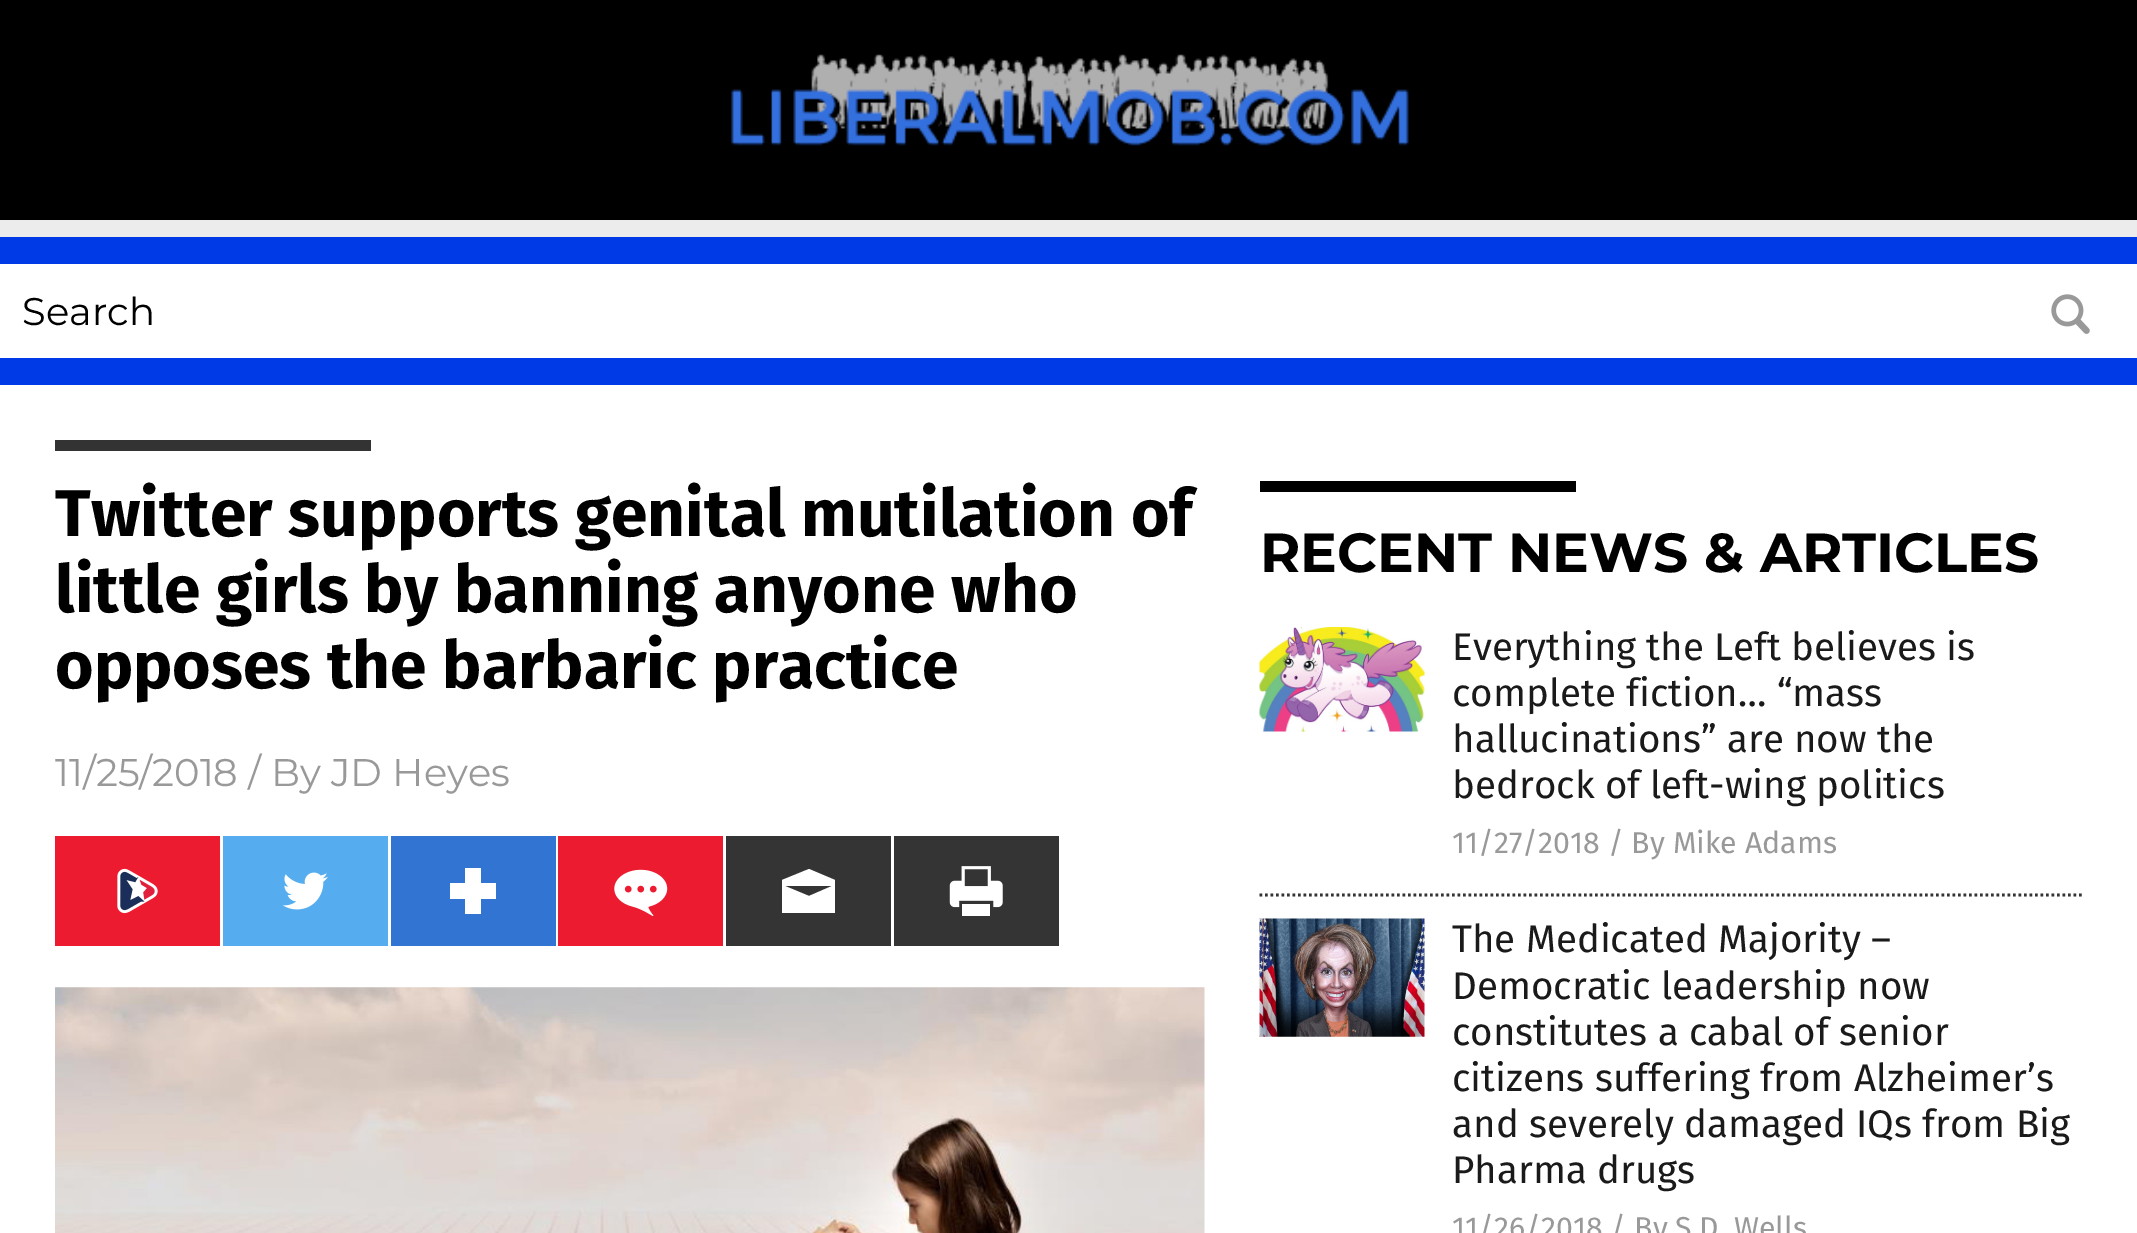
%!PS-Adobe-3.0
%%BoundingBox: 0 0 2137 1233
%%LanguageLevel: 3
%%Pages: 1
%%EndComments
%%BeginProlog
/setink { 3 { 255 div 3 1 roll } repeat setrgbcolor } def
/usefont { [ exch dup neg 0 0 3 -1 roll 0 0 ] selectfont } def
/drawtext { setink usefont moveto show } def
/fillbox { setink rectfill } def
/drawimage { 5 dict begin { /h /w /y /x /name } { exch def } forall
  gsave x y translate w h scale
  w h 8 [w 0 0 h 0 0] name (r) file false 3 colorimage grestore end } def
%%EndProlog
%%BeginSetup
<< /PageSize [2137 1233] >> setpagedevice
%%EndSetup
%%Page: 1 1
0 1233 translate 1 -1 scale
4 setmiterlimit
0 0 2137 1233 0 57 230 fillbox
0 0 2137 220 0 0 0 fillbox
(assets/img1.rgb) 731 54 678 92 drawimage
0 220 2137 17 236 236 236 fillbox
0 264 2137 94 255 255 255 fillbox
(Search) 22 325 /Montserrat-Regular 38.5 0 0 0 drawtext
(assets/img2.rgb) 2051 294 39 40 drawimage
0 385 2137 848 255 255 255 fillbox
55 440 316 11 51 51 51 fillbox
(Twitter supports genital mutilation of) 55 536 /FiraSans-Bold 66 0 0 0 drawtext
(little girls by banning anyone who) 55 612 /FiraSans-Bold 66 0 0 0 drawtext
(opposes the barbaric practice) 55 688 /FiraSans-Bold 66 0 0 0 drawtext
(11/25/2018 / By JD Heyes) 55 786 /Montserrat-Regular 38.5 153 153 153 drawtext
55 836 165 110 237 27 47 fillbox
(assets/img3.rgb) 117 868 41 46 drawimage
223 836 165 110 85 172 239 fillbox
(assets/img4.rgb) 282 872 46 38 drawimage
391 836 165 110 50 116 209 fillbox
255 255 255 setink
496 883 moveto 481 883 lineto 481 868 lineto 465 868 lineto 465 883 lineto 450 883 lineto 450 899 lineto 465 899 lineto 465 914 lineto 481 914 lineto 481 899 lineto 496 899 lineto closepath fill
558 836 165 110 237 27 47 fillbox
(assets/img5.rgb) 614 869 54 47 drawimage
726 836 165 110 52 52 52 fillbox
255 255 255 setink
809 869 moveto 782 880 lineto 782 913 lineto 835 913 lineto 835 880 lineto closepath 809 896 moveto 785 886 lineto 832 886 lineto closepath fill
894 836 165 110 52 52 52 fillbox
(assets/img6.rgb) 949 866 54 50 drawimage
(assets/img7.rgb) 55 987 1150 246 drawimage
1260 481 316 11 0 0 0 fillbox
(RECENT NEWS & ARTICLES) 1260 572 /Montserrat-Bold 55 0 0 0 drawtext
52 52 52 setink
2.8 setlinewidth
[2.75 2.75] 0 setdash
1259.5 895 moveto 2084.5 895 lineto stroke
(assets/img8.rgb) 1259 627 166 105 drawimage
(Everything the Left believes is) 1452 660 /FiraSans-Regular 38.5 26 26 26 drawtext
(complete fiction… “mass) 1452 706 /FiraSans-Regular 38.5 26 26 26 drawtext
(hallucinations” are now the) 1452 752 /FiraSans-Regular 38.5 26 26 26 drawtext
(bedrock of left-wing politics) 1452 798 /FiraSans-Regular 38.5 26 26 26 drawtext
(11/27/2018 / By Mike Adams) 1452 853 /FiraSans-Regular 30.25 153 153 153 drawtext
(assets/img9.rgb) 1259 918 166 119 drawimage
(The Medicated Majority –) 1452 952 /FiraSans-Regular 38.5 26 26 26 drawtext
(Democratic leadership now) 1452 999 /FiraSans-Regular 38.5 26 26 26 drawtext
(constitutes a cabal of senior) 1452 1045 /FiraSans-Regular 38.5 26 26 26 drawtext
(citizens suffering from Alzheimer’s) 1452 1091 /FiraSans-Regular 38.5 26 26 26 drawtext
(and severely damaged IQs from Big) 1452 1137 /FiraSans-Regular 38.5 26 26 26 drawtext
(Pharma drugs) 1452 1183 /FiraSans-Regular 38.5 26 26 26 drawtext
(11/26/2018 / By S.D. Wells) 1452 1238 /FiraSans-Regular 30.25 153 153 153 drawtext
showpage
%%EOF
